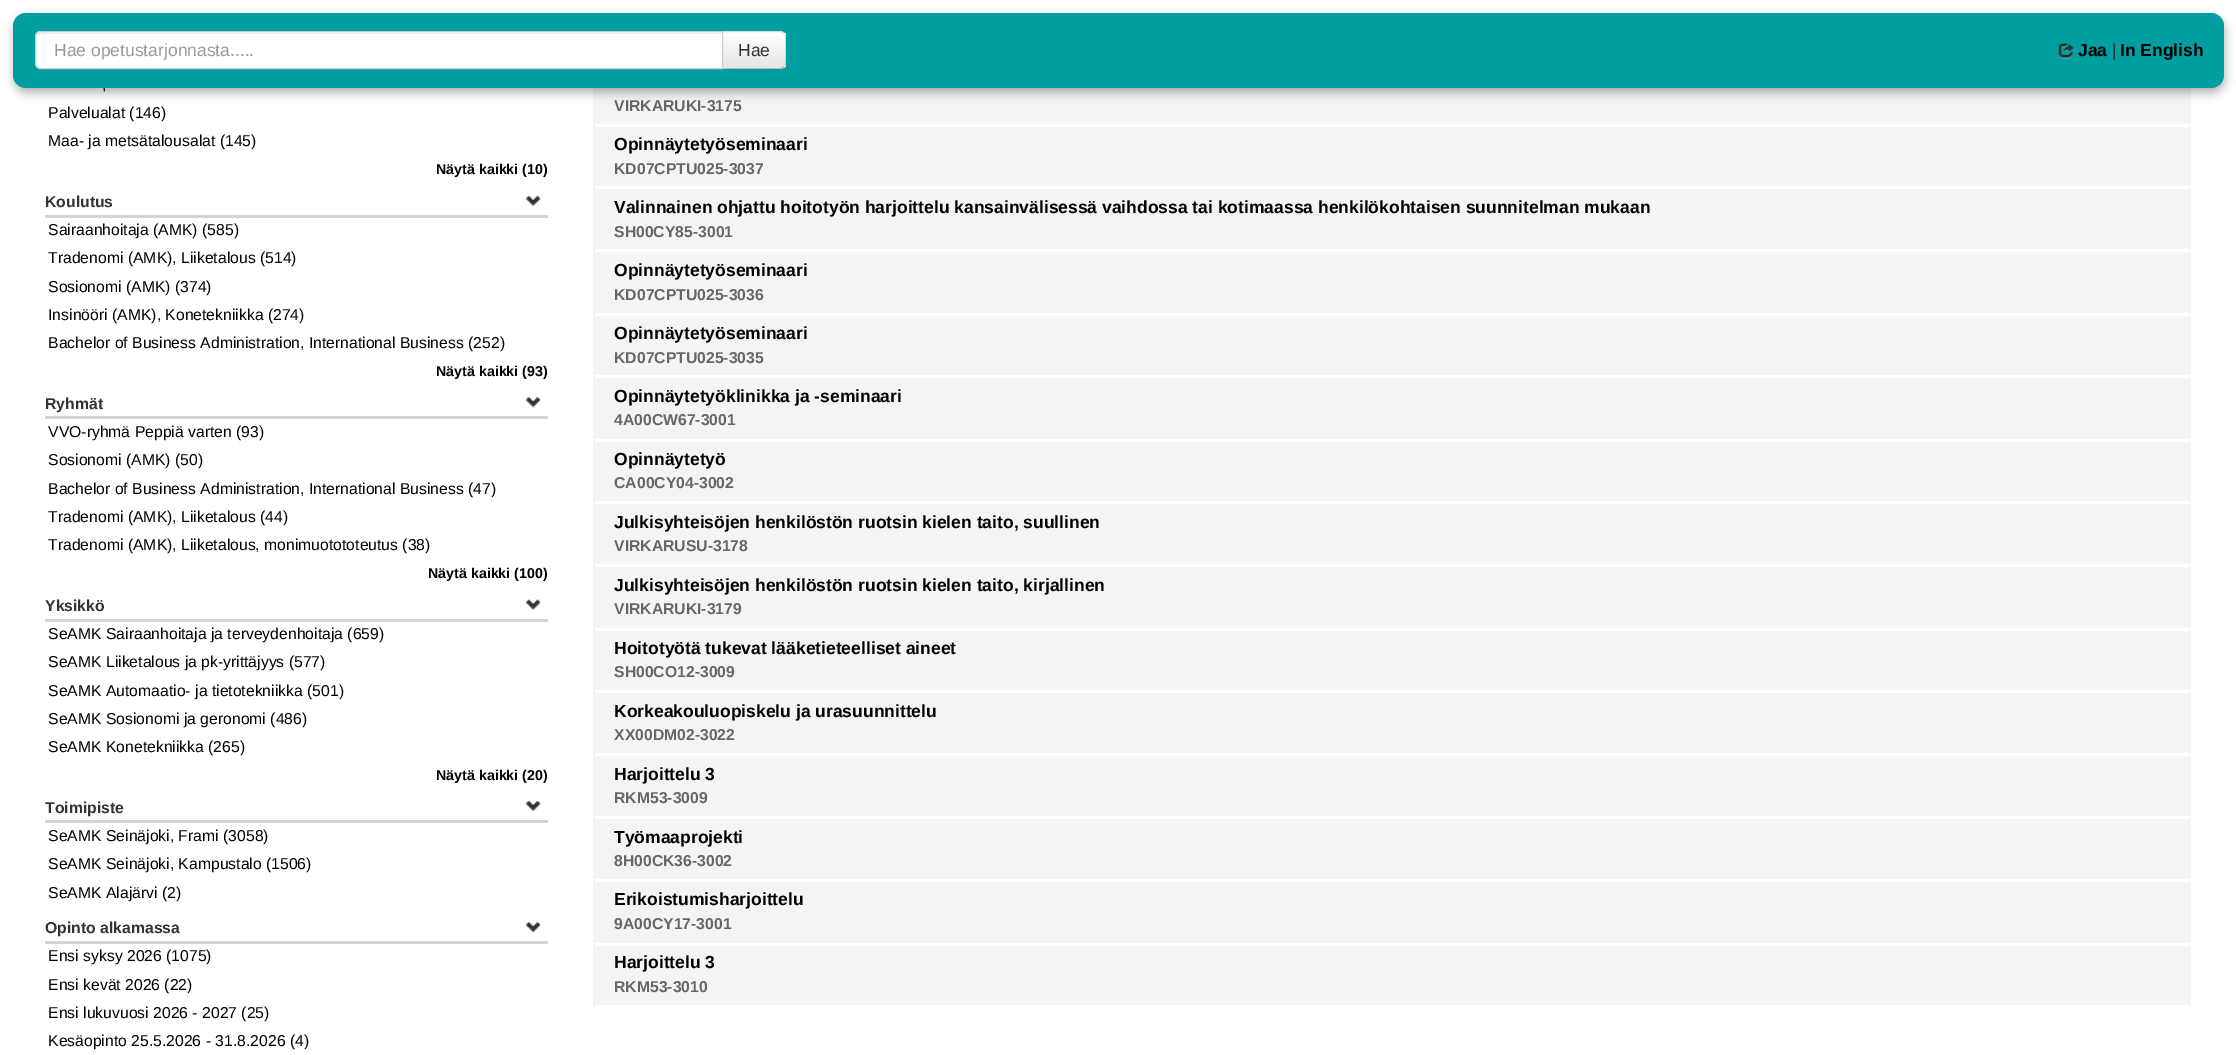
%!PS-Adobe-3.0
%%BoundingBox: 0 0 2236 1055
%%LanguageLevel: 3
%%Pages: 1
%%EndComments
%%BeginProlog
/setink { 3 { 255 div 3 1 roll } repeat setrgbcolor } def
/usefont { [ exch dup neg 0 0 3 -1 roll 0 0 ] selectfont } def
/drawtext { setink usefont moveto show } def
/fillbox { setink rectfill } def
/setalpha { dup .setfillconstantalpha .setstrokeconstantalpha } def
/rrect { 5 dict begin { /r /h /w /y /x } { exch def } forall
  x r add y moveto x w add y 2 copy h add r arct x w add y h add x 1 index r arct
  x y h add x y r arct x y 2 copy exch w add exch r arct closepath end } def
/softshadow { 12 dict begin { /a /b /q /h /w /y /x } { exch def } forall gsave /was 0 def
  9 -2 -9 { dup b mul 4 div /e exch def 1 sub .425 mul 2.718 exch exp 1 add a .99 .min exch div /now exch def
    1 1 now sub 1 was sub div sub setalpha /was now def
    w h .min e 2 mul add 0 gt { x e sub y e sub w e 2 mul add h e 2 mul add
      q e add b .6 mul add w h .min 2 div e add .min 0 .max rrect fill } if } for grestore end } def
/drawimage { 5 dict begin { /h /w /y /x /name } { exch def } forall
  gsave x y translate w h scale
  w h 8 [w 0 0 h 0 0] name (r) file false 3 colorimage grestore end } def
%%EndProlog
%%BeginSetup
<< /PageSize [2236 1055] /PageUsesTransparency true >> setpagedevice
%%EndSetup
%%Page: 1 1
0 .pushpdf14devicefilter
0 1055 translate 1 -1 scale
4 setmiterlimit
0 0 2236 1055 255 255 255 fillbox
593 88 1598 920 244 244 244 fillbox
0 0 0 setink
14 18 2211 75 13 5 0.3 softshadow
0 158 160 setink
13 13 2211 75 13 rrect fill
245 245 245 setink
721 31 moveto 780 31 lineto 783.5 31 786 33.5 786 37 curveto 786 63 lineto 786 66.5 783.5 69 780 69 curveto 721 69 lineto closepath fill
gsave
721 31 moveto 780 31 lineto 783.5 31 786 33.5 786 37 curveto 786 63 lineto 786 66.5 783.5 69 780 69 curveto 721 69 lineto closepath clip newpath
gsave 723 33 moveto 786 33 lineto 786 68 lineto 723 68 lineto closepath clip newpath
<< /ShadingType 2 /ColorSpace /DeviceRGB /Coords [754 32 754 68] /Extend [true true] /Function << /FunctionType 2 /Domain [0 1] /C0 [1 1 1] /C1 [0.902 0.902 0.902] /N 1 >> >> shfill grestore
grestore
0.1 setalpha
0 0 0 setink
722 32 moveto 721 31 lineto 782 31 lineto 784 33 lineto 784 34 lineto 783 33 782 32 780 32 curveto closepath fill
784.5 33 moveto 785.5 34.5 786 36 786 38 curveto 786 62 lineto 786 64 785.5 65.5 784.5 67 curveto 783.5 66 lineto 784.5 65 785 63.5 785 62 curveto 785 38 lineto 785 36.5 784.5 35 783.5 34 curveto closepath fill
1 setalpha
179 179 179 setink
784 67 moveto 782 69 lineto 721 69 lineto 722 68 lineto 781 68 lineto 784 66 lineto closepath fill
255 255 255 setink
41 31 moveto 723 31 lineto 723 69 lineto 41 69 lineto 37.5 69 35 66.5 35 63 curveto 35 37 lineto 35 33.5 37.5 31 41 31 curveto closepath fill
236 236 236 setink
41 34 moveto 721 34 lineto 721 33 lineto 41 33 lineto 38 33 36 36 36 39 curveto 36 36 38 34 41 34 curveto closepath fill
204 204 204 setink
41 31.5 moveto 722.5 31.5 lineto 722.5 68.5 lineto 41 68.5 lineto 38 68.5 35.5 66 35.5 63 curveto 35.5 37 lineto 35.5 34 38 31.5 41 31.5 curveto closepath stroke
(Hae opetustarjonnasta.....) 54 56 /LiberationSans-Regular 17.5 153 153 153 drawtext
(Hae) 738 56 /LiberationSans-Regular 17.5 51 51 51 drawtext
(assets/img1.rgb) 2058 43 16 16 drawimage
(Jaa) 2078 56 /LiberationSans-Bold 17.5 0 0 0 drawtext
(|) 2112 56 /LiberationSans-Regular 17.5 51 51 51 drawtext
(In English) 2120 56 /LiberationSans-Bold 17.5 0 0 0 drawtext
(,) 102 90 /LiberationSans-Regular 15.75 0 0 0 drawtext
(Palvelualat \(146\)) 48 118 /LiberationSans-Regular 15.75 0 0 0 drawtext
(Maa- ja metsätalousalat \(145\)) 48 146 /LiberationSans-Regular 15.75 0 0 0 drawtext
(Näytä kaikki \(10\)) 436 174 /LiberationSans-Bold 14.25 0 0 0 drawtext
45 215 503 3 212 212 212 fillbox
(Koulutus) 45 207 /LiberationSans-Bold 15.75 51 51 51 drawtext
(assets/img2.rgb) 525 195 16 12 drawimage
(Sairaanhoitaja \(AMK\) \(585\)) 48 235 /LiberationSans-Regular 15.75 0 0 0 drawtext
(Tradenomi \(AMK\), Liiketalous \(514\)) 48 263 /LiberationSans-Regular 15.75 0 0 0 drawtext
(Sosionomi \(AMK\) \(374\)) 48 292 /LiberationSans-Regular 15.75 0 0 0 drawtext
(Insinööri \(AMK\), Konetekniikka \(274\)) 48 320 /LiberationSans-Regular 15.75 0 0 0 drawtext
(Bachelor of Business Administration, International Business \(252\)) 48 348 /LiberationSans-Regular 15.75 0 0 0 drawtext
(Näytä kaikki \(93\)) 436 376 /LiberationSans-Bold 14.25 0 0 0 drawtext
45 416 503 3 212 212 212 fillbox
(Ryhmät) 45 409 /LiberationSans-Bold 15.75 51 51 51 drawtext
(assets/img3.rgb) 525 397 16 11 drawimage
(VVO-ryhmä Peppiä varten \(93\)) 48 437 /LiberationSans-Regular 15.75 0 0 0 drawtext
(Sosionomi \(AMK\) \(50\)) 48 465 /LiberationSans-Regular 15.75 0 0 0 drawtext
(Bachelor of Business Administration, International Business \(47\)) 48 494 /LiberationSans-Regular 15.75 0 0 0 drawtext
(Tradenomi \(AMK\), Liiketalous \(44\)) 48 522 /LiberationSans-Regular 15.75 0 0 0 drawtext
(Tradenomi \(AMK\), Liiketalous, monimuotototeutus \(38\)) 48 550 /LiberationSans-Regular 15.75 0 0 0 drawtext
(Näytä kaikki \(100\)) 428 578 /LiberationSans-Bold 14.25 0 0 0 drawtext
45 619 503 3 212 212 212 fillbox
(Yksikkö) 45 611 /LiberationSans-Bold 15.75 51 51 51 drawtext
(assets/img4.rgb) 525 599 16 11 drawimage
(SeAMK Sairaanhoitaja ja terveydenhoitaja \(659\)) 48 639 /LiberationSans-Regular 15.75 0 0 0 drawtext
(SeAMK Liiketalous ja pk-yrittäjyys \(577\)) 48 667 /LiberationSans-Regular 15.75 0 0 0 drawtext
(SeAMK Automaatio- ja tietotekniikka \(501\)) 48 696 /LiberationSans-Regular 15.75 0 0 0 drawtext
(SeAMK Sosionomi ja geronomi \(486\)) 48 724 /LiberationSans-Regular 15.75 0 0 0 drawtext
(SeAMK Konetekniikka \(265\)) 48 752 /LiberationSans-Regular 15.75 0 0 0 drawtext
(Näytä kaikki \(20\)) 436 780 /LiberationSans-Bold 14.25 0 0 0 drawtext
45 820 503 3 212 212 212 fillbox
(Toimipiste) 45 813 /LiberationSans-Bold 15.75 51 51 51 drawtext
(assets/img2.rgb) 525 800 16 12 drawimage
(SeAMK Seinäjoki, Frami \(3058\)) 48 841 /LiberationSans-Regular 15.75 0 0 0 drawtext
(SeAMK Seinäjoki, Kampustalo \(1506\)) 48 869 /LiberationSans-Regular 15.75 0 0 0 drawtext
(SeAMK Alajärvi \(2\)) 48 898 /LiberationSans-Regular 15.75 0 0 0 drawtext
45 941 503 3 212 212 212 fillbox
(Opinto alkamassa) 45 933 /LiberationSans-Bold 15.75 51 51 51 drawtext
(assets/img3.rgb) 525 922 16 11 drawimage
(Ensi syksy 2026 \(1075\)) 48 961 /LiberationSans-Regular 15.75 0 0 0 drawtext
(Ensi kevät 2026 \(22\)) 48 990 /LiberationSans-Regular 15.75 0 0 0 drawtext
(Ensi lukuvuosi 2026 - 2027 \(25\)) 48 1018 /LiberationSans-Regular 15.75 0 0 0 drawtext
(Kesäopinto 25.5.2026 - 31.8.2026 \(4\)) 48 1046 /LiberationSans-Regular 15.75 0 0 0 drawtext
595 124 1595 3 255 255 255 fillbox
(VIRKARUKI-3175) 614 111 /LiberationSans-Bold 15.75 102 102 102 drawtext
595 186 1595 3 255 255 255 fillbox
(Opinnäytetyöseminaari) 614 150 /LiberationSans-Bold 17.5 0 0 0 drawtext
(KD07CPTU025-3037) 614 174 /LiberationSans-Bold 15.75 102 102 102 drawtext
595 249 1595 3 255 255 255 fillbox
(Valinnainen ohjattu hoitotyön harjoittelu kansainvälisessä vaihdossa tai kotimaassa henkilökohtaisen suunnitelman mukaan) 614 213 /LiberationSans-Bold 17.5 0 0 0 drawtext
(SH00CY85-3001) 614 237 /LiberationSans-Bold 15.75 102 102 102 drawtext
595 313 1595 3 255 255 255 fillbox
(Opinnäytetyöseminaari) 614 276 /LiberationSans-Bold 17.5 0 0 0 drawtext
(KD07CPTU025-3036) 614 300 /LiberationSans-Bold 15.75 102 102 102 drawtext
595 375 1595 3 255 255 255 fillbox
(Opinnäytetyöseminaari) 614 339 /LiberationSans-Bold 17.5 0 0 0 drawtext
(KD07CPTU025-3035) 614 363 /LiberationSans-Bold 15.75 102 102 102 drawtext
595 439 1595 3 255 255 255 fillbox
(Opinnäytetyöklinikka ja -seminaari) 614 402 /LiberationSans-Bold 17.5 0 0 0 drawtext
(4A00CW67-3001) 614 425 /LiberationSans-Bold 15.75 102 102 102 drawtext
595 501 1595 3 255 255 255 fillbox
(Opinnäytetyö) 614 465 /LiberationSans-Bold 17.5 0 0 0 drawtext
(CA00CY04-3002) 614 488 /LiberationSans-Bold 15.75 102 102 102 drawtext
595 564 1595 3 255 255 255 fillbox
(Julkisyhteisöjen henkilöstön ruotsin kielen taito, suullinen) 614 528 /LiberationSans-Bold 17.5 0 0 0 drawtext
(VIRKARUSU-3178) 614 551 /LiberationSans-Bold 15.75 102 102 102 drawtext
595 628 1595 3 255 255 255 fillbox
(Julkisyhteisöjen henkilöstön ruotsin kielen taito, kirjallinen) 614 591 /LiberationSans-Bold 17.5 0 0 0 drawtext
(VIRKARUKI-3179) 614 614 /LiberationSans-Bold 15.75 102 102 102 drawtext
595 690 1595 3 255 255 255 fillbox
(Hoitotyötä tukevat lääketieteelliset aineet) 614 654 /LiberationSans-Bold 17.5 0 0 0 drawtext
(SH00CO12-3009) 614 677 /LiberationSans-Bold 15.75 102 102 102 drawtext
595 753 1595 3 255 255 255 fillbox
(Korkeakouluopiskelu ja urasuunnittelu) 614 717 /LiberationSans-Bold 17.5 0 0 0 drawtext
(XX00DM02-3022) 614 740 /LiberationSans-Bold 15.75 102 102 102 drawtext
595 816 1595 3 255 255 255 fillbox
(Harjoittelu 3) 614 780 /LiberationSans-Bold 17.5 0 0 0 drawtext
(RKM53-3009) 614 803 /LiberationSans-Bold 15.75 102 102 102 drawtext
595 879 1595 3 255 255 255 fillbox
(Työmaaprojekti) 614 843 /LiberationSans-Bold 17.5 0 0 0 drawtext
(8H00CK36-3002) 614 866 /LiberationSans-Bold 15.75 102 102 102 drawtext
595 943 1595 3 255 255 255 fillbox
(Erikoistumisharjoittelu) 614 905 /LiberationSans-Bold 17.5 0 0 0 drawtext
(9A00CY17-3001) 614 929 /LiberationSans-Bold 15.75 102 102 102 drawtext
595 1005 1595 3 255 255 255 fillbox
(Harjoittelu 3) 614 968 /LiberationSans-Bold 17.5 0 0 0 drawtext
(RKM53-3010) 614 992 /LiberationSans-Bold 15.75 102 102 102 drawtext
.poppdf14devicefilter showpage
%%EOF
